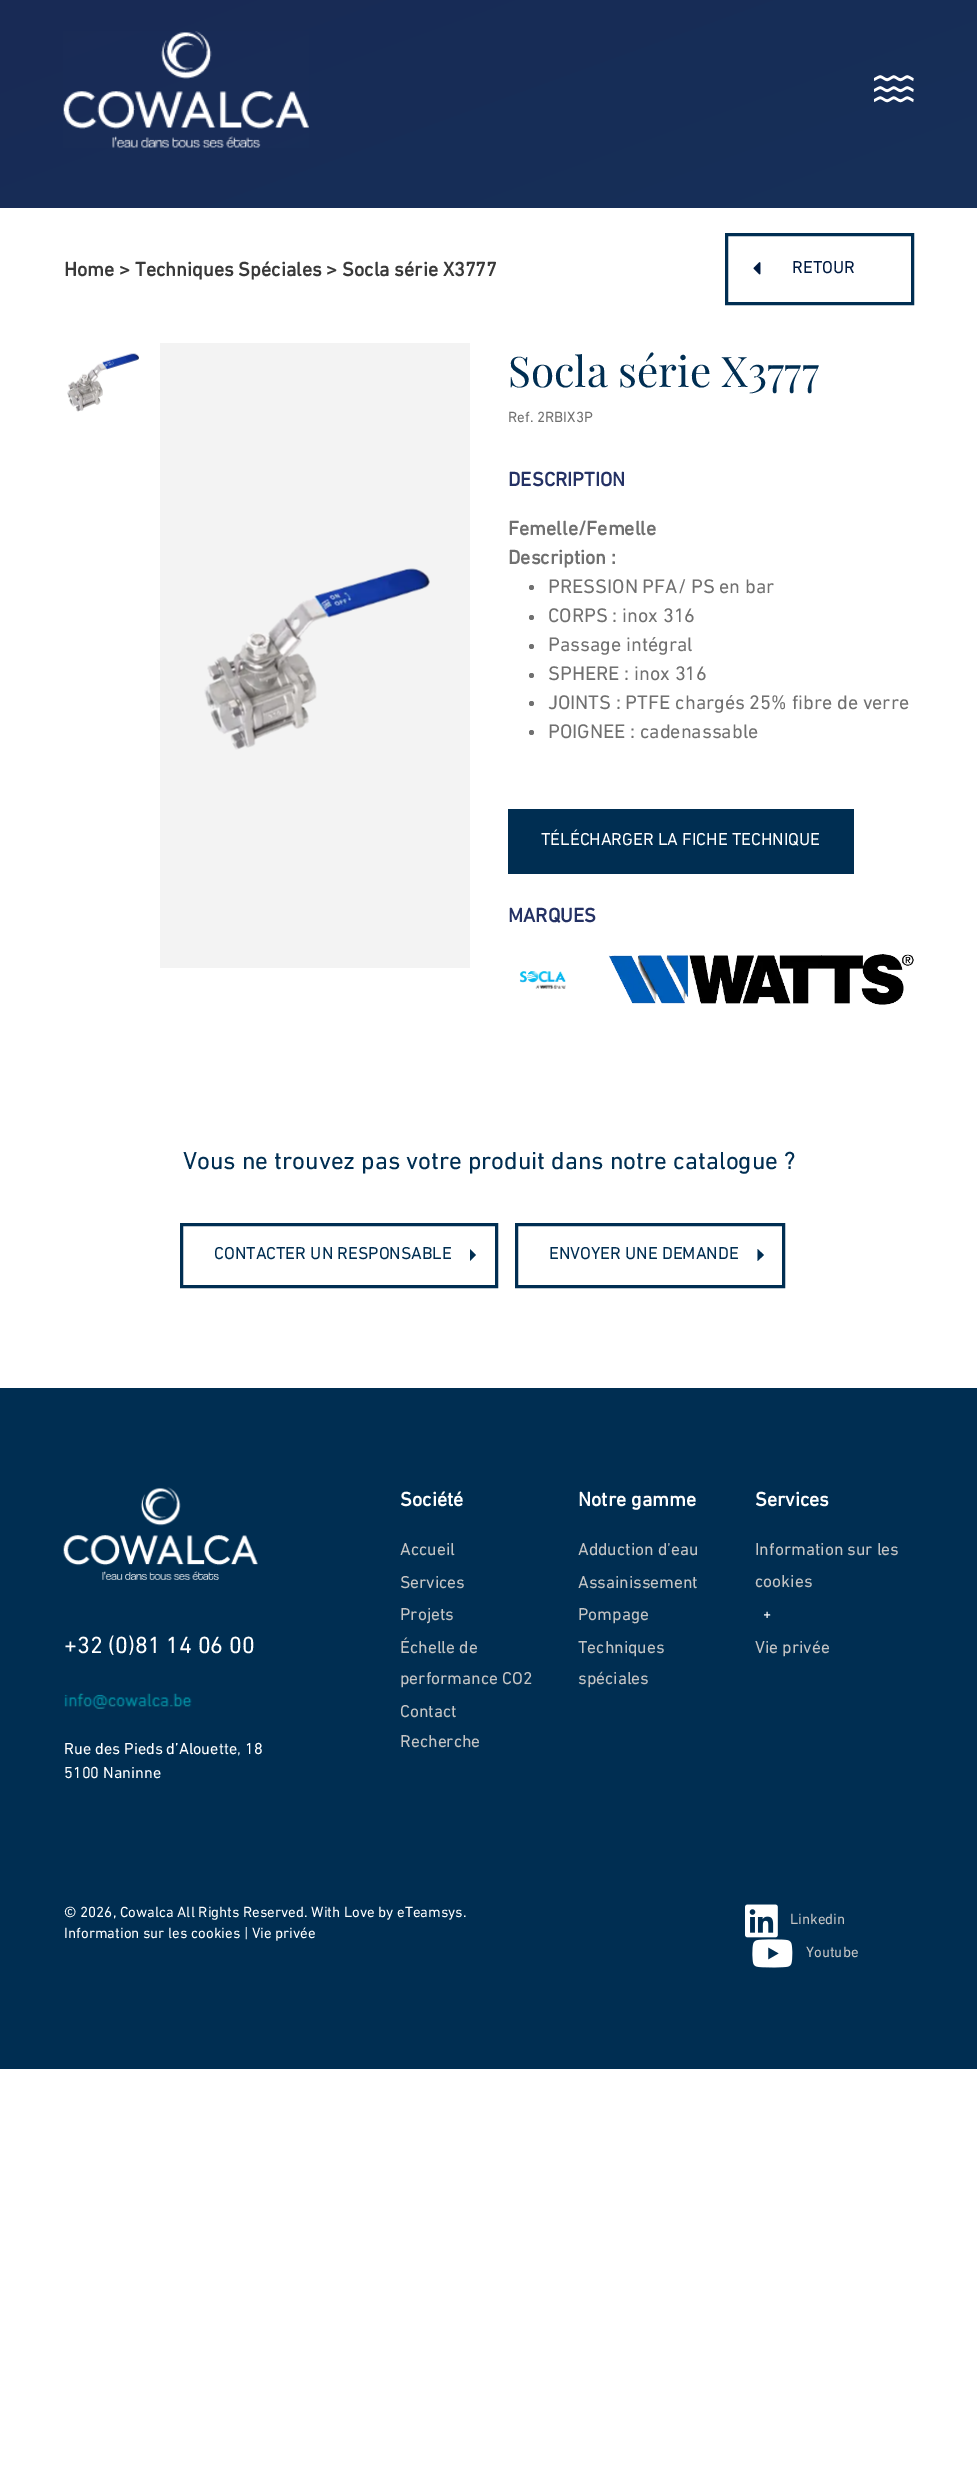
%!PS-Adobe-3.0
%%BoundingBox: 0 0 977 2488
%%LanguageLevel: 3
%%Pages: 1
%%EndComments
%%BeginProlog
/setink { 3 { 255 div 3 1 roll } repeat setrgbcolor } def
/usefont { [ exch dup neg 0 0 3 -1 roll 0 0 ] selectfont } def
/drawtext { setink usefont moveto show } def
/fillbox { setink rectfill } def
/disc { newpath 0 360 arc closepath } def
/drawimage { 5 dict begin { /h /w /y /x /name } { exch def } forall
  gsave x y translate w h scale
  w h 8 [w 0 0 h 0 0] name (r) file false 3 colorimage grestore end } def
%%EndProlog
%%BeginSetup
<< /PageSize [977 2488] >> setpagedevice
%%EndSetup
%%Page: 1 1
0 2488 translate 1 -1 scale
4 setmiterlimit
0 0 977 2488 255 255 255 fillbox
gsave 0 0 moveto 977 0 lineto 977 208 lineto 0 208 lineto closepath clip newpath
<< /ShadingType 2 /ColorSpace /DeviceRGB /Coords [32 -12 946 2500] /Extend [true true] /Function << /FunctionType 2 /Domain [0 1] /C0 [0.098 0.165 0.333] /C1 [0.031 0.278 0.416] /N 1 >> >> shfill grestore
(assets/img1.rgb) 63 31 246 117 drawimage
(assets/img2.rgb) 874 75 40 28 drawimage
(Home > Techniques Spéciales > Socla série X3777) 64 276 /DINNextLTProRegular-Bold 20 57 57 57 drawtext
0 46 82 setink
3 setlinewidth
726.5 234.5 186 69 rectstroke
(assets/img3.rgb) 753 262 8 13 drawimage
(RETOUR) 792 273 /DINNextLTProRegular-Regular 17.5 0 26 65 drawtext
(assets/img4.rgb) 67 353 72 59 drawimage
160 343 310 625 243 243 243 fillbox
(assets/img5.rgb) 204 568 226 182 drawimage
(Socla série X3777) 508 387 /PlayfairDisplay-Regular 42.25 0 46 82 drawtext
(Ref. 2RBIX3P) 508 422 /DINNextLTProRegular-Regular 15 112 112 112 drawtext
(DESCRIPTION) 508 486 /DINNextLTProRegular-Bold 20 36 49 100 drawtext
(Femelle/Femelle) 508 535 /DINNextLTProRegular-Bold 20 112 112 112 drawtext
(Description :) 508 564 /DINNextLTProRegular-Bold 20 112 112 112 drawtext
531.5 587.5 2.5 disc fill
(PRESSION PFA/ PS en bar) 548 593 /DINNextLTProRegular-Regular 20 112 112 112 drawtext
531.5 617.5 2.5 disc fill
(CORPS : inox 316) 548 622 /DINNextLTProRegular-Regular 20 112 112 112 drawtext
531.5 646.5 2.5 disc fill
(Passage intégral) 548 651 /DINNextLTProRegular-Regular 20 112 112 112 drawtext
531.5 675.5 2.5 disc fill
(SPHERE : inox 316) 548 680 /DINNextLTProRegular-Regular 20 112 112 112 drawtext
531.5 703.5 2.5 disc fill
(JOINTS : PTFE chargés 25% fibre de verre) 548 709 /DINNextLTProRegular-Regular 20 112 112 112 drawtext
531.5 732.5 2.5 disc fill
(POIGNEE : cadenassable) 548 738 /DINNextLTProRegular-Regular 20 112 112 112 drawtext
508 809 346 65 0 46 82 fillbox
(TÉLÉCHARGER LA FICHE TECHNIQUE) 541 845 /DINNextLTProRegular-Regular 17.5 255 255 255 drawtext
(MARQUES) 508 922 /DINNextLTProRegular-Bold 20 36 49 100 drawtext
(assets/img6.rgb) 519 971 47 18 drawimage
(assets/img7.rgb) 608 954 306 51 drawimage
(Vous ne trouvez pas votre produit dans notre catalogue ?) 183 1169 /DINNextLTProRegular-Regular 25 0 46 82 drawtext
181.5 1224.5 315 62 rectstroke
(CONTACTER UN RESPONSABLE) 214 1259 /DINNextLTProRegular-Regular 17.5 0 46 82 drawtext
470 1261 moveto 470 1249 lineto 476 1255 lineto closepath fill
516.5 1224.5 267 62 rectstroke
(ENVOYER UNE DEMANDE) 549 1259 /DINNextLTProRegular-Regular 17.5 0 46 82 drawtext
757.5 1261 moveto 757.5 1249 lineto 764 1255 lineto closepath fill
0 1388 977 681 0 46 82 fillbox
(Société) 400 1506 /DINNextLTProRegular-Bold 20 255 255 255 drawtext
(Accueil) 400 1555 /DINNextLTProRegular-Regular 17.5 197 197 197 drawtext
(Services) 400 1588 /DINNextLTProRegular-Regular 17.5 197 197 197 drawtext
(Projets) 400 1620 /DINNextLTProRegular-Regular 17.5 197 197 197 drawtext
(Échelle de) 400 1653 /DINNextLTProRegular-Regular 17.5 197 197 197 drawtext
(performance CO2) 400 1684 /DINNextLTProRegular-Regular 17.5 197 197 197 drawtext
(Contact) 400 1717 /DINNextLTProRegular-Regular 17.5 197 197 197 drawtext
(Recherche) 400 1747 /DINNextLTProRegular-Regular 17.5 197 197 197 drawtext
(Notre gamme) 578 1506 /DINNextLTProRegular-Bold 20 255 255 255 drawtext
(Adduction d’eau) 578 1555 /DINNextLTProRegular-Regular 17.5 197 197 197 drawtext
(Assainissement) 578 1588 /DINNextLTProRegular-Regular 17.5 197 197 197 drawtext
(Pompage) 578 1620 /DINNextLTProRegular-Regular 17.5 197 197 197 drawtext
(Techniques) 578 1653 /DINNextLTProRegular-Regular 17.5 197 197 197 drawtext
(spéciales) 578 1684 /DINNextLTProRegular-Regular 17.5 197 197 197 drawtext
(Services) 755 1506 /DINNextLTProRegular-Bold 20 255 255 255 drawtext
(Information sur les) 755 1555 /DINNextLTProRegular-Regular 17.5 197 197 197 drawtext
(cookies) 755 1587 /DINNextLTProRegular-Regular 17.5 197 197 197 drawtext
(+) 763 1619 /DINNextLTProRegular-Regular 15 255 255 255 drawtext
(Vie privée) 755 1653 /DINNextLTProRegular-Regular 17.5 197 197 197 drawtext
(assets/img8.rgb) 63 1487 195 93 drawimage
(+32 \(0\)81 14 06 00) 64 1653 /DINNextLTProRegular-Regular 23.75 255 255 255 drawtext
(assets/img9.rgb) 64 1693 128 16 drawimage
(Rue des Pieds d’Alouette, 18) 64 1754 /DINNextLTProRegular-Regular 16.25 255 255 255 drawtext
(5100 Naninne) 64 1778 /DINNextLTProRegular-Regular 16.25 255 255 255 drawtext
(© 2026, Cowalca All Rights Reserved. With Love by eTeamsys.) 64 1917 /DINNextLTProRegular-Regular 15 255 255 255 drawtext
(Information sur les cookies | Vie privée) 64 1938 /DINNextLTProRegular-Regular 15 255 255 255 drawtext
(assets/img10.rgb) 745 1904 33 34 drawimage
(Linkedin) 790 1924 /DINNextLTProRegular-Regular 15 197 197 197 drawtext
(assets/img11.rgb) 752 1939 41 29 drawimage
(Youtube) 806 1957 /DINNextLTProRegular-Regular 15 197 197 197 drawtext
showpage
%%EOF
